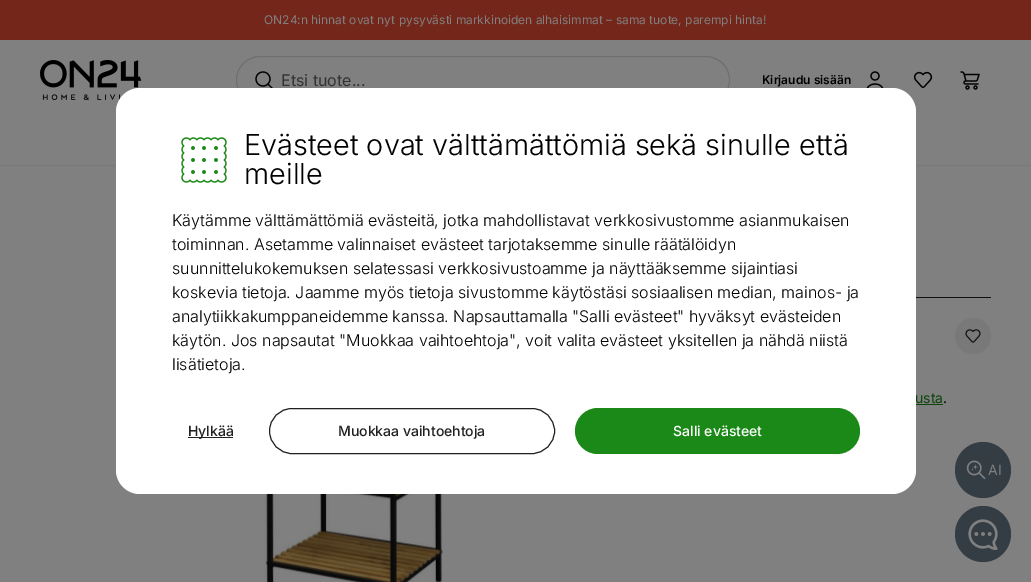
%!PS-Adobe-3.0
%%BoundingBox: 0 0 1031 582
%%LanguageLevel: 3
%%Pages: 1
%%EndComments
%%BeginProlog
/setink { 3 { 255 div 3 1 roll } repeat setrgbcolor } def
/usefont { [ exch dup neg 0 0 3 -1 roll 0 0 ] selectfont } def
/drawtext { setink usefont moveto show } def
/fillbox { setink rectfill } def
/disc { newpath 0 360 arc closepath } def
/rrect { 5 dict begin { /r /h /w /y /x } { exch def } forall
  x r add y moveto x w add y 2 copy h add r arct x w add y h add x 1 index r arct
  x y h add x y r arct x y 2 copy exch w add exch r arct closepath end } def
/drawimage { 5 dict begin { /h /w /y /x /name } { exch def } forall
  gsave x y translate w h scale
  w h 8 [w 0 0 h 0 0] name (r) file false 3 colorimage grestore end } def
%%EndProlog
%%BeginSetup
<< /PageSize [1031 582] >> setpagedevice
%%EndSetup
%%Page: 1 1
0 582 translate 1 -1 scale
4 setmiterlimit
0 0 1031 582 128 128 128 fillbox
0 0 1031 40 115 38 25 fillbox
(ON24:n hinnat ovat nyt pysyvästi markkinoiden alhaisimmat – sama tuote, parempi hinta!) 264 24 /Inter-Regular 12 128 128 128 drawtext
(assets/img1.rgb) 40 60 102 40 drawimage
111 111 111 setink
236.5 56.5 493 47 23.5 rrect stroke
(assets/img2.rgb) 255 71 18 17 drawimage
(Etsi tuote...) 281 86 /Inter-Regular 16 51 51 51 drawtext
(Kirjaudu sisään) 762 84 /Inter-SemiBold 12 0 0 0 drawtext
(assets/img3.rgb) 866 71 18 17 drawimage
(assets/img4.rgb) 913 71 20 17 drawimage
(assets/img5.rgb) 960 71 20 19 drawimage
0 165 1031 1 121 121 121 fillbox
916 297 75 1 16 16 16 fillbox
121 121 121 setink
973 336 18 disc fill
(assets/img6.rgb) 965 329 16 14 drawimage
(usta) 915 403 /Inter-Regular 14 13 69 12 drawtext
916 404 27 1 13 69 12 fillbox
(.) 943 403 /Inter-Regular 14 0 0 0 drawtext
(assets/img7.rgb) 264 494 179 88 drawimage
52 60 68 setink
983 470 28 disc fill
(assets/img8.rgb) 966 460 20 20 drawimage
(AI) 988 475 /Inter-Regular 14 128 128 128 drawtext
52 60 68 setink
983 534 28 disc fill
(assets/img9.rgb) 968 519 30 31 drawimage
255 255 255 setink
116 88 800 406 24 rrect fill
(assets/img10.rgb) 181 137 46 46 drawimage
(Evästeet ovat välttämättömiä sekä sinulle että) 244 155 /Inter-Light 28.8 0 0 0 drawtext
(meille) 244 184 /Inter-Light 28.8 0 0 0 drawtext
(Käytämme välttämättömiä evästeitä, jotka mahdollistavat verkkosivustomme asianmukaisen) 172 226 /Inter-Light 16 0 0 0 drawtext
(toiminnan. Asetamme valinnaiset evästeet tarjotaksemme sinulle räätälöidyn) 172 250 /Inter-Light 16 0 0 0 drawtext
(suunnittelukokemuksen selatessasi verkkosivustoamme ja näyttääksemme sijaintiasi) 172 274 /Inter-Light 16 0 0 0 drawtext
(koskevia tietoja. Jaamme myös tietoja sivustomme käytöstäsi sosiaalisen median, mainos- ja) 172 298 /Inter-Light 16 0 0 0 drawtext
(analytiikkakumppaneidemme kanssa. Napsauttamalla "Salli evästeet" hyväksyt evästeiden) 172 322 /Inter-Light 16 0 0 0 drawtext
(käytön. Jos napsautat "Muokkaa vaihtoehtoja", voit valita evästeet yksitellen ja nähdä niistä) 172 346 /Inter-Light 16 0 0 0 drawtext
(lisätietoja.) 172 370 /Inter-Light 16 0 0 0 drawtext
188 437 45 1 32 32 32 fillbox
(Hylkää) 188 436 /Inter-Medium 14 32 32 32 drawtext
269.5 408.5 285 45 22.5 rrect stroke
(Muokkaa vaihtoehtoja) 338 436 /Inter-Medium 14 32 32 32 drawtext
26 137 23 setink
575 408 285 46 23 rrect fill
(Salli evästeet) 673 436 /Inter-Medium 14 255 255 255 drawtext
showpage
%%EOF
